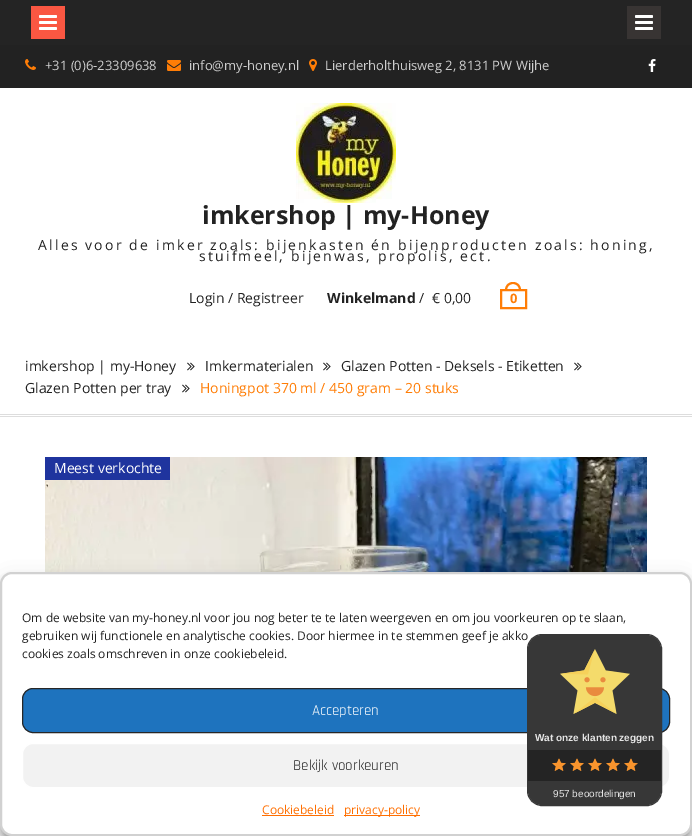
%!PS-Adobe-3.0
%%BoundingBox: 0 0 692 836
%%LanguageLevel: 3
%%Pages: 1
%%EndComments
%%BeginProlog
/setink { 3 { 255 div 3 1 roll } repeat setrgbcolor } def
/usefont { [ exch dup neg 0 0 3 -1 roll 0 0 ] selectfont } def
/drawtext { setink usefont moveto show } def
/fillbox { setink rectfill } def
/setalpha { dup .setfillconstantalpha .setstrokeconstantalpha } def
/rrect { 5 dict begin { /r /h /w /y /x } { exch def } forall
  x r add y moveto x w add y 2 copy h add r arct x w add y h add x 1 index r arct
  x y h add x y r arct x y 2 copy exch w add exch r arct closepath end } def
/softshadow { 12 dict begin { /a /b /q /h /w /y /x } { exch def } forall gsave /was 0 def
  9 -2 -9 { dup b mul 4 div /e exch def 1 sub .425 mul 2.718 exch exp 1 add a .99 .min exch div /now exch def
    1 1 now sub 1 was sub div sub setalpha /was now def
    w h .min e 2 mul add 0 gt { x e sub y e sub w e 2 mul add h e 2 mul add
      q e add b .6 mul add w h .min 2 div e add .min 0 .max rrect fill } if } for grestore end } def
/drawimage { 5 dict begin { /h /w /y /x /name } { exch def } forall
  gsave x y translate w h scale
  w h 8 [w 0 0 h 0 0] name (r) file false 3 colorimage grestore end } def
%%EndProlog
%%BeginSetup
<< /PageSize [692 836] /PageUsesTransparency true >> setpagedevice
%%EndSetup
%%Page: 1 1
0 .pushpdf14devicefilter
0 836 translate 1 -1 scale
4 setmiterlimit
0 0 692 836 255 255 255 fillbox
0 0 692 45 36 36 36 fillbox
31 6 34 33 250 87 66 fillbox
(assets/img1.rgb) 39 15 18 15 drawimage
627 6 34 33 56 52 51 fillbox
(assets/img2.rgb) 635 15 18 15 drawimage
0 45 692 43 34 34 34 fillbox
(assets/img3.rgb) 25 59 11 11 drawimage
(+31 \(0\)6-23309638) 45 70 /OpenSans-Regular 13 206 206 206 drawtext
(assets/img4.rgb) 167 60 14 11 drawimage
(info@my-honey.nl) 189 70 /OpenSans-Regular 13 206 206 206 drawtext
(assets/img5.rgb) 309 59 8 12 drawimage
(Lierderholthuisweg 2, 8131 PW Wijhe) 325 70 /OpenSans-Regular 13 206 206 206 drawtext
(assets/img6.rgb) 648 59 8 13 drawimage
(assets/img7.rgb) 296 103 100 100 drawimage
(imkershop | my-Honey) 202 224 /OpenSans-Bold 25 34 34 34 drawtext
/OpenSans-Regular 14 usefont
38 250 moveto 2.2 0 (Alles voor de imker zoals: bijenkasten én bijenproducten zoals: honing,) ashow
199 261 moveto 2.2 0 (stuifmeel, bijenwas, propolis, ect.) ashow
(Login / Registreer) 189 303 /OpenSans-Regular 14 34 34 34 drawtext
(Winkelmand) 327 303 /OpenSans-Bold 14 34 34 34 drawtext
(/) 419 303 /OpenSans-Regular 14 34 34 34 drawtext
(€ 0,00) 432 303 /OpenSans-Regular 14 34 34 34 drawtext
255 125 6 setink
513 282 moveto 517.5 282 521 285.5 521 290 curveto 505 290 lineto 505 285.5 508.5 282 513 282 curveto closepath 513 284 moveto 516.5 284 519 286.5 519 290 curveto 507 290 lineto 507 286.5 509.5 284 513 284 curveto closepath eofill
2 setlinewidth
501 290 25 18 rectstroke
(0) 510 303 /OpenSans-Bold 13 255 125 6 drawtext
0 414 692 1 221 221 221 fillbox
0 416 692 1 221 221 221 fillbox
(imkershop | my-Honey) 25 371 /OpenSans-Regular 14 34 34 34 drawtext
(assets/img8.rgb) 187 362 8 9 drawimage
(Imkermaterialen) 205 371 /OpenSans-Regular 14 34 34 34 drawtext
(assets/img8.rgb) 323 362 8 9 drawimage
(Glazen Potten - Deksels - Etiketten) 341 371 /OpenSans-Regular 14 34 34 34 drawtext
(assets/img8.rgb) 574 362 8 9 drawimage
(Glazen Potten per tray) 25 393 /OpenSans-Regular 14 34 34 34 drawtext
(assets/img8.rgb) 182 384 8 9 drawimage
(Honingpot 370 ml / 450 gram – 20 stuks) 200 393 /OpenSans-Regular 14 255 125 6 drawtext
(assets/img9.rgb) 45 457 602 115 drawimage
45 457 125 23 31 52 158 fillbox
(Meest verkochte) 54 473 /OpenSans-Regular 14 255 255 255 drawtext
0 0 0 setink
0 578 692 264 12 3 0.23 softshadow
0 582 692 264 12 10 0.19 softshadow
255 255 255 setink
1 573 690 262 11 rrect gsave fill grestore
209 209 209 setink
stroke
(Om de website van my-honey.nl voor jou nog beter te te laten weergeven en om jou voorkeuren op te slaan,) 22 622 /OpenSans-Regular 12 34 34 34 drawtext
(gebruiken wij functionele en analytische cookies. Door hiermee in te stemmen geef je akko) 22 640 /OpenSans-Regular 12 34 34 34 drawtext
(cookies zoals omschreven in onze cookiebeleid.) 22 658 /OpenSans-Regular 12 34 34 34 drawtext
30 115 190 setink
22.5 688.5 647 44 10.5 rrect gsave fill grestore
39 39 39 setink
1 setlinewidth
stroke
(Accepteren) 312 715 /Rajdhani-Regular 15 255 255 255 drawtext
242 242 242 setink
22.5 743.5 647 44 10.5 rrect gsave fill grestore
255 255 255 setink
stroke
(Bekijk voorkeuren) 293 770 /Rajdhani-Regular 15 34 34 34 drawtext
(Cookiebeleid) 262 814 /OpenSans-Regular 12 255 110 0 drawtext
262 815 72 1 255 110 0 fillbox
344 815 76 1 255 110 0 fillbox
(privacy-policy) 344 814 /OpenSans-Regular 12 255 110 0 drawtext
55 55 55 setink
527.5 634.5 134 171 14.5 rrect stroke
542 635 moveto 647 635 lineto 654.5 635 661 641.5 661 649 curveto 661 750 lineto 528 750 lineto 528 649 lineto 528 641.5 534.5 635 542 635 curveto closepath fill
528 750 133 31 36 36 36 fillbox
55 55 55 setink
528 781 moveto 661 781 lineto 661 791 lineto 661 798.5 654.5 805 647 805 curveto 542 805 lineto 534.5 805 528 798.5 528 791 curveto closepath fill
(assets/img10.rgb) 560 649 70 65 drawimage
(Wat onze klanten zeggen) 535 741 /LiberationSans-Bold 10 229 229 229 drawtext
(assets/img11.rgb) 552 758 14 13 drawimage
(assets/img12.rgb) 552 758 14 13 drawimage
(assets/img11.rgb) 570 758 14 13 drawimage
(assets/img12.rgb) 570 758 14 13 drawimage
(assets/img11.rgb) 588 758 14 13 drawimage
(assets/img12.rgb) 588 758 14 13 drawimage
(assets/img11.rgb) 606 758 14 13 drawimage
(assets/img12.rgb) 606 758 14 13 drawimage
(assets/img11.rgb) 624 758 14 13 drawimage
(assets/img13.rgb) 624 758 11 13 drawimage
(957 beoordelingen) 553 797 /LiberationSans-Regular 10 229 229 229 drawtext
.poppdf14devicefilter showpage
%%EOF
